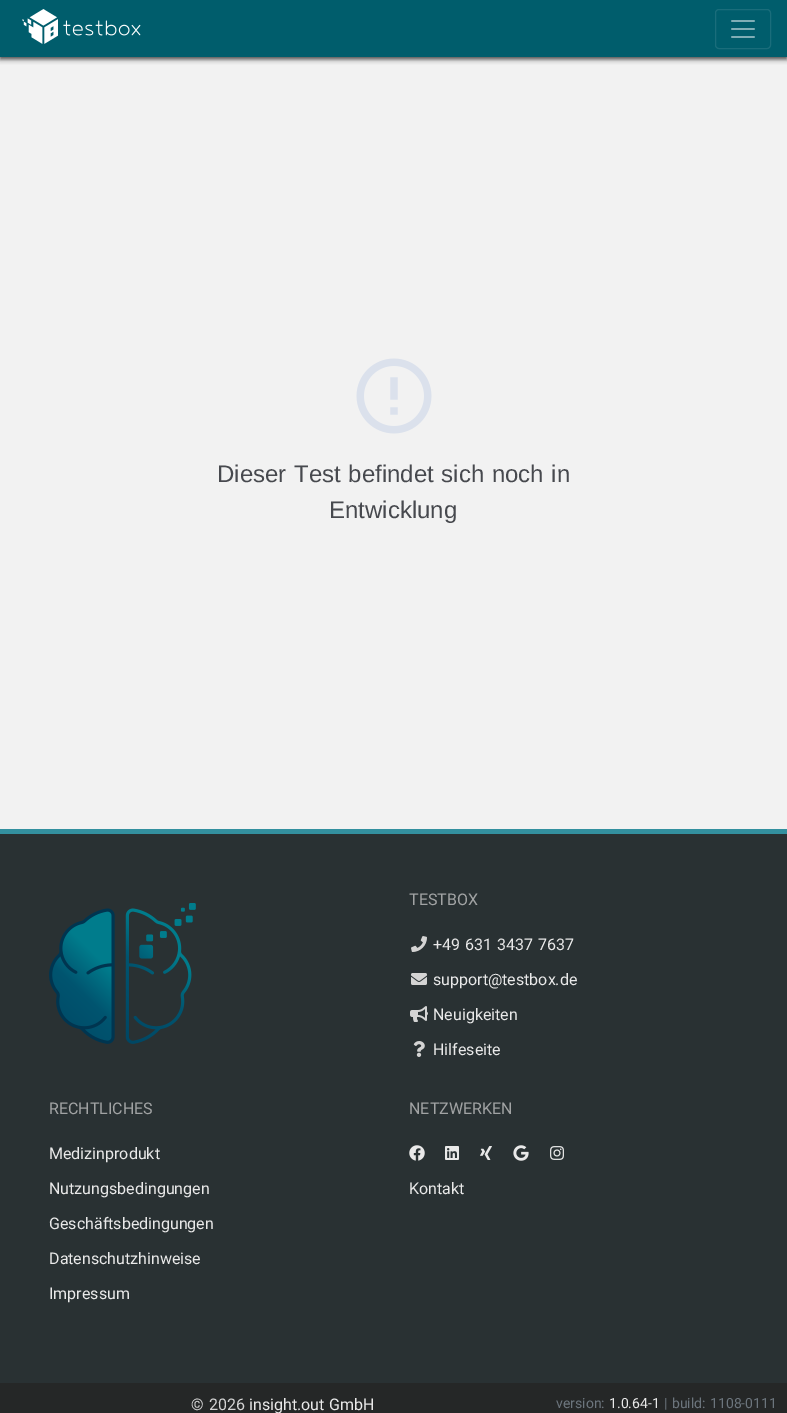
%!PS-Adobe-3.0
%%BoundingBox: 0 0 787 1413
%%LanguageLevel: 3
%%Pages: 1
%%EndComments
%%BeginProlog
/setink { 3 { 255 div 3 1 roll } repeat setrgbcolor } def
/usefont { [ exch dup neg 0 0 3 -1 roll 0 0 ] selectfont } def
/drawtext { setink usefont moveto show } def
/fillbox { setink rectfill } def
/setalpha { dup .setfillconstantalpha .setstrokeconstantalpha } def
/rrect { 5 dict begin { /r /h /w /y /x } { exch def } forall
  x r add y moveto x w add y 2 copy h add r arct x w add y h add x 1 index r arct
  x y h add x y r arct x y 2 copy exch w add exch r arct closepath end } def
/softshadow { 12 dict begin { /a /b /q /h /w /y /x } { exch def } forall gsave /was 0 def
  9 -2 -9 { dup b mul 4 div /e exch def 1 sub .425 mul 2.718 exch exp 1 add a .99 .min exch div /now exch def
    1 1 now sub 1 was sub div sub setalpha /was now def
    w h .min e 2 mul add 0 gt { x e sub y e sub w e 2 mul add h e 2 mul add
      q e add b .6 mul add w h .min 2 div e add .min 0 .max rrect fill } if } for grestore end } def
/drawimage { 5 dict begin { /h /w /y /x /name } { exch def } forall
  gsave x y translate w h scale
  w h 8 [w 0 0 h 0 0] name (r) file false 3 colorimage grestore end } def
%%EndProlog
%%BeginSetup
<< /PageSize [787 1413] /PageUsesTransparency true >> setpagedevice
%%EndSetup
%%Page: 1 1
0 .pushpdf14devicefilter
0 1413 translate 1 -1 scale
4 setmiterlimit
0 0 787 1413 242 242 242 fillbox
0 0 0 setink
0 2 787 57 0 2.5 0.75 softshadow
0 0 787 57 0 93 108 fillbox
(assets/img1.rgb) 22 9 119 35 drawimage
26 109 123 setink
715.5 9.5 55 39 3.5 rrect stroke
(assets/img2.rgb) 731 20 24 18 drawimage
(assets/img3.rgb) 356 358 76 76 drawimage
/LiberationSans-Regular 24 usefont
71 73 78 setink
217 482 moveto 1 0 32 (Dieser Test befindet sich noch in) widthshow
(Entwicklung) 329 518 /LiberationSans-Regular 24 71 73 78 drawtext
0 829 787 5 51 144 159 fillbox
0 834 787 549 41 49 51 fillbox
(assets/img4.rgb) 49 903 147 141 drawimage
(TESTBOX) 409 905 /Roboto-Regular 16 161 163 164 drawtext
(assets/img5.rgb) 411 936 16 16 drawimage
233 233 233 setink
433 950 moveto 1 0 32 (+49 631 3437 7637) widthshow
(assets/img6.rgb) 411 973 16 12 drawimage
(support@testbox.de) 433 985 /Roboto-Regular 16 233 233 233 drawtext
(assets/img7.rgb) 410 1006 18 16 drawimage
(Neuigkeiten) 433 1020 /Roboto-Regular 16 233 233 233 drawtext
(assets/img8.rgb) 413 1041 12 16 drawimage
(Hilfeseite) 433 1055 /Roboto-Regular 16 233 233 233 drawtext
(RECHTLICHES) 49 1114 /Roboto-Regular 16 161 163 164 drawtext
(Medizinprodukt) 49 1159 /Roboto-Regular 16 233 233 233 drawtext
(Nutzungsbedingungen) 49 1194 /Roboto-Regular 16 233 233 233 drawtext
(Geschäftsbedingungen) 49 1229 /Roboto-Regular 16 233 233 233 drawtext
(Datenschutzhinweise) 49 1264 /Roboto-Regular 16 233 233 233 drawtext
(Impressum) 49 1299 /Roboto-Regular 16 233 233 233 drawtext
(NETZWERKEN) 409 1114 /Roboto-Regular 16 161 163 164 drawtext
(assets/img9.rgb) 409 1145 16 16 drawimage
(assets/img10.rgb) 445 1146 14 14 drawimage
(assets/img11.rgb) 480 1146 12 14 drawimage
(assets/img12.rgb) 513 1145 16 16 drawimage
(assets/img13.rgb) 550 1146 14 14 drawimage
(Kontakt) 409 1194 /Roboto-Regular 16 233 233 233 drawtext
0 1383 787 30 37 39 39 fillbox
212 212 212 setink
191 1410 moveto 1 0 32 (© 2026) widthshow
233 233 233 setink
249 1410 moveto 1 0 32 (insight.out GmbH) widthshow
(version:) 556 1408 /Roboto-Regular 14 108 117 125 drawtext
(1.0.64-1) 609 1408 /Roboto-Regular 14 233 233 233 drawtext
108 117 125 setink
664 1408 moveto 1 0 32 (| build:) widthshow
(1108-0111) 710 1408 /Roboto-Regular 14 108 117 125 drawtext
.poppdf14devicefilter showpage
%%EOF
